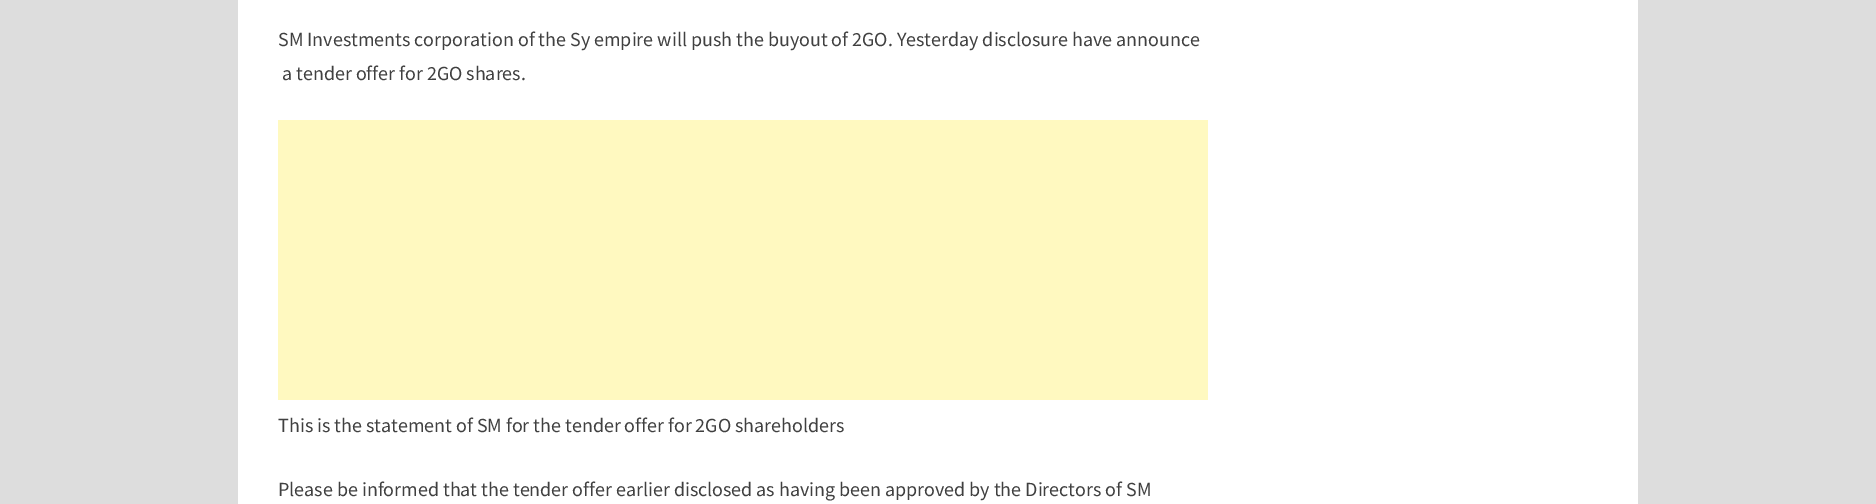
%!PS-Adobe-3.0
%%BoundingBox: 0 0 1876 504
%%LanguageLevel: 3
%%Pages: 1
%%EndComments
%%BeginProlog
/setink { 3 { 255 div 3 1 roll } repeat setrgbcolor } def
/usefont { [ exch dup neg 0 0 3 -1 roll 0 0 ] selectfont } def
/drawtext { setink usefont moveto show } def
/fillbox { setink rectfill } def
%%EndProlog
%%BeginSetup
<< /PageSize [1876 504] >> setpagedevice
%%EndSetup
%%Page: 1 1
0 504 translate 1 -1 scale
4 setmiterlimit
0 0 1876 504 221 221 221 fillbox
238 0 1400 504 255 255 255 fillbox
(SM Investments corporation of the Sy empire will push the buyout of 2GO. Yesterday disclosure have announce) 278 46 /SourceSansPro-Regular 20 64 64 64 drawtext
(a tender offer for 2GO shares.) 282 80 /SourceSansPro-Regular 20 64 64 64 drawtext
278 120 930 280 255 249 192 fillbox
(This is the statement of SM for the tender offer for 2GO shareholders) 278 432 /SourceSansPro-Regular 20 64 64 64 drawtext
(Please be informed that the tender offer earlier disclosed as having been approved by the Directors of SM) 278 496 /SourceSansPro-Regular 20 64 64 64 drawtext
showpage
%%EOF
